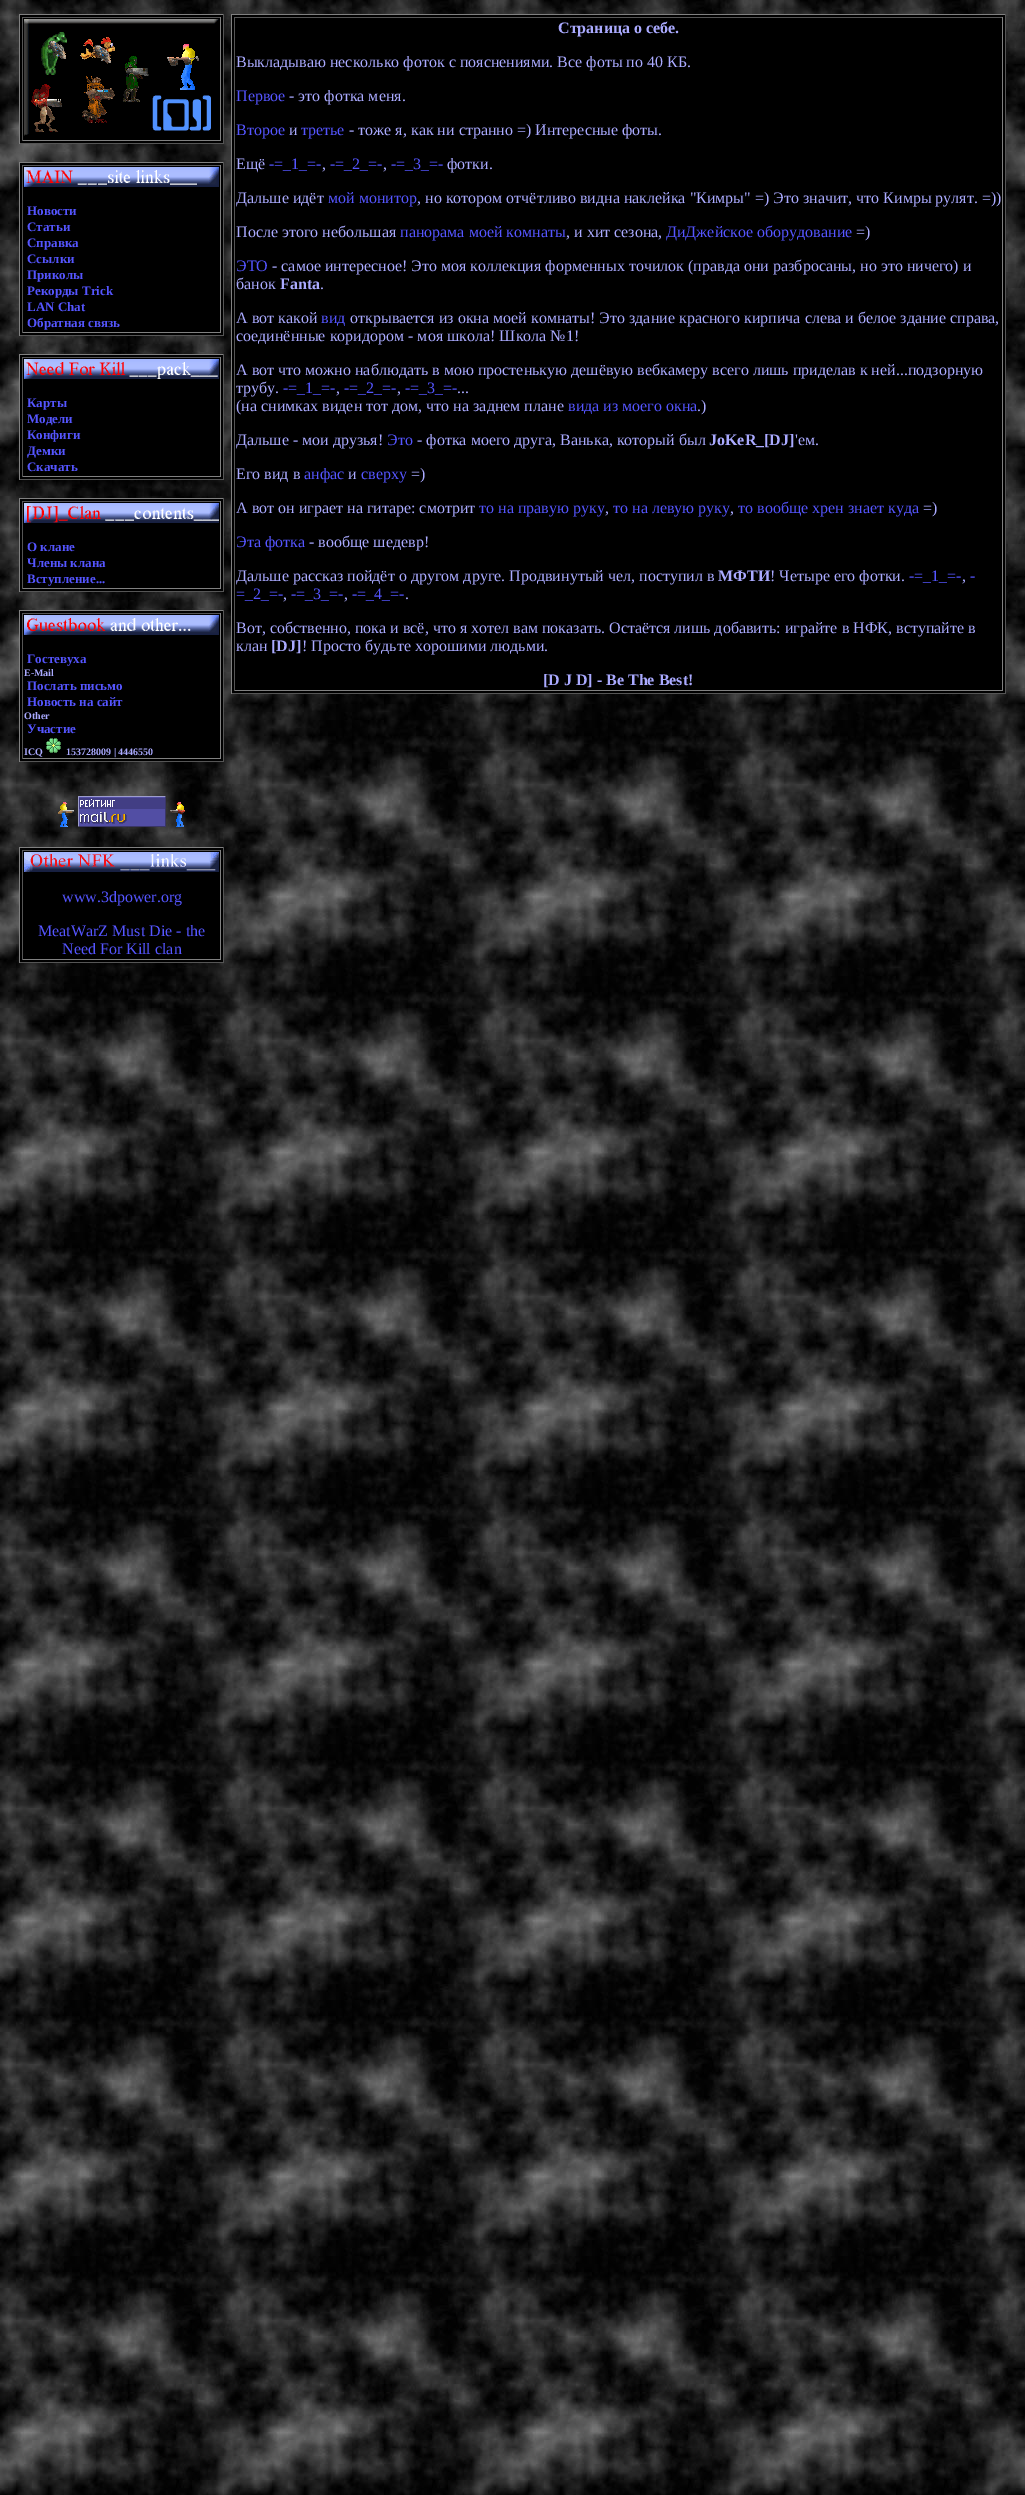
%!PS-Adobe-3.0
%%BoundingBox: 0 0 1025 2495
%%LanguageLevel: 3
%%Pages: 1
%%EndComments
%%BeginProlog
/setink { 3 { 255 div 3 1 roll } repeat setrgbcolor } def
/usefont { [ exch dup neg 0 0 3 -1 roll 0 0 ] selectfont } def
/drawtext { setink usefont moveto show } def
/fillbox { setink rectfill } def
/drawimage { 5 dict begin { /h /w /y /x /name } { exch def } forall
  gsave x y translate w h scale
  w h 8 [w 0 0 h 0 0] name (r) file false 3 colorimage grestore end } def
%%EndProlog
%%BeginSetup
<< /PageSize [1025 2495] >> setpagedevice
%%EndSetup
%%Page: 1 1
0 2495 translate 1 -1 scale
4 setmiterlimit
0 0 1025 2495 255 255 255 fillbox
(assets/img1.rgb) 0 0 1025 2495 drawimage
20 15 203 128 0 0 0 fillbox
19 14 205 1 128 128 128 fillbox
223 14 1 130 85 85 85 fillbox
19 143 205 1 85 85 85 fillbox
19 14 1 130 128 128 128 fillbox
22 17 199 1 85 85 85 fillbox
220 17 1 124 128 128 128 fillbox
22 140 199 1 128 128 128 fillbox
22 17 1 124 85 85 85 fillbox
(assets/img2.rgb) 24 19 195 117 drawimage
20 163 203 172 0 0 0 fillbox
19 162 205 1 128 128 128 fillbox
223 162 1 174 85 85 85 fillbox
19 335 205 1 85 85 85 fillbox
19 162 1 174 128 128 128 fillbox
22 165 199 1 85 85 85 fillbox
220 165 1 168 128 128 128 fillbox
22 332 199 1 128 128 128 fillbox
22 165 1 168 85 85 85 fillbox
(assets/img3.rgb) 24 167 195 20 drawimage
(Новости) 27 215 /LiberationSerif-Bold 13 85 85 255 drawtext
(Статьи) 27 231 /LiberationSerif-Bold 13 85 85 255 drawtext
(Справка) 27 247 /LiberationSerif-Bold 13 85 85 255 drawtext
(Ссылки) 27 263 /LiberationSerif-Bold 13 85 85 255 drawtext
(Приколы) 27 279 /LiberationSerif-Bold 13 85 85 255 drawtext
(Рекорды Trick) 27 295 /LiberationSerif-Bold 13 85 85 255 drawtext
(LAN Chat) 27 311 /LiberationSerif-Bold 13 85 85 255 drawtext
(Обратная связь) 27 327 /LiberationSerif-Bold 13 85 85 255 drawtext
20 355 203 124 0 0 0 fillbox
19 354 205 1 128 128 128 fillbox
223 354 1 126 85 85 85 fillbox
19 479 205 1 85 85 85 fillbox
19 354 1 126 128 128 128 fillbox
22 357 199 1 85 85 85 fillbox
220 357 1 120 128 128 128 fillbox
22 476 199 1 128 128 128 fillbox
22 357 1 120 85 85 85 fillbox
(assets/img4.rgb) 24 359 195 20 drawimage
(Карты) 27 407 /LiberationSerif-Bold 13 85 85 255 drawtext
(Модели) 27 423 /LiberationSerif-Bold 13 85 85 255 drawtext
(Конфиги) 27 439 /LiberationSerif-Bold 13 85 85 255 drawtext
(Демки) 27 455 /LiberationSerif-Bold 13 85 85 255 drawtext
(Скачать) 27 471 /LiberationSerif-Bold 13 85 85 255 drawtext
20 499 203 92 0 0 0 fillbox
19 498 205 1 128 128 128 fillbox
223 498 1 94 85 85 85 fillbox
19 591 205 1 85 85 85 fillbox
19 498 1 94 128 128 128 fillbox
22 501 199 1 85 85 85 fillbox
220 501 1 88 128 128 128 fillbox
22 588 199 1 128 128 128 fillbox
22 501 1 88 85 85 85 fillbox
(assets/img5.rgb) 24 503 195 20 drawimage
(О клане) 27 551 /LiberationSerif-Bold 13 85 85 255 drawtext
(Члены клана) 27 567 /LiberationSerif-Bold 13 85 85 255 drawtext
(Вступление...) 27 583 /LiberationSerif-Bold 13 85 85 255 drawtext
20 611 203 150 0 0 0 fillbox
19 610 205 1 128 128 128 fillbox
223 610 1 152 85 85 85 fillbox
19 761 205 1 85 85 85 fillbox
19 610 1 152 128 128 128 fillbox
22 613 199 1 85 85 85 fillbox
220 613 1 146 128 128 128 fillbox
22 758 199 1 128 128 128 fillbox
22 613 1 146 85 85 85 fillbox
(assets/img6.rgb) 24 615 195 20 drawimage
(Гостевуха) 27 663 /LiberationSerif-Bold 13 85 85 255 drawtext
(E-Mail) 24 676 /LiberationSerif-Bold 10 170 170 255 drawtext
(Послать письмо) 27 690 /LiberationSerif-Bold 13 85 85 255 drawtext
(Новость на сайт) 27 706 /LiberationSerif-Bold 13 85 85 255 drawtext
(Other) 24 719 /LiberationSerif-Bold 10 170 170 255 drawtext
(Участие) 27 733 /LiberationSerif-Bold 13 85 85 255 drawtext
(ICQ) 24 755 /LiberationSerif-Bold 10 170 170 255 drawtext
(assets/img7.rgb) 46 738 15 15 drawimage
(153728009 | 4446550) 66 755 /LiberationSerif-Bold 10 170 170 255 drawtext
(assets/img8.rgb) 58 802 16 25 drawimage
(assets/img9.rgb) 78 796 88 31 drawimage
(assets/img10.rgb) 170 802 15 25 drawimage
20 848 203 114 0 0 0 fillbox
19 847 205 1 128 128 128 fillbox
223 847 1 116 85 85 85 fillbox
19 962 205 1 85 85 85 fillbox
19 847 1 116 128 128 128 fillbox
22 850 199 1 85 85 85 fillbox
220 850 1 110 128 128 128 fillbox
22 959 199 1 128 128 128 fillbox
22 850 1 110 85 85 85 fillbox
(assets/img11.rgb) 24 852 195 20 drawimage
(www.3dpower.org) 62 902 /LiberationSerif-Regular 16 85 85 255 drawtext
(MeatWarZ Must Die - the) 38 936 /LiberationSerif-Regular 16 85 85 255 drawtext
(Need For Kill clan) 62 954 /LiberationSerif-Regular 16 85 85 255 drawtext
232 15 773 678 0 0 0 fillbox
231 14 775 1 128 128 128 fillbox
1005 14 1 680 85 85 85 fillbox
231 693 775 1 85 85 85 fillbox
231 14 1 680 128 128 128 fillbox
234 17 769 1 85 85 85 fillbox
1002 17 1 674 128 128 128 fillbox
234 690 769 1 128 128 128 fillbox
234 17 1 674 85 85 85 fillbox
(Страница о себе.) 558 33 /LiberationSerif-Bold 16 170 170 255 drawtext
(Выкладываю несколько фоток с пояснениями. Все фоты по 40 КБ.) 236 67 /LiberationSerif-Regular 16 170 170 255 drawtext
(Первое) 236 101 /LiberationSerif-Regular 16 85 85 255 drawtext
(- это фотка меня.) 289 101 /LiberationSerif-Regular 16 170 170 255 drawtext
(Второе) 236 135 /LiberationSerif-Regular 16 85 85 255 drawtext
(и) 289 135 /LiberationSerif-Regular 16 170 170 255 drawtext
(третье) 301 135 /LiberationSerif-Regular 16 85 85 255 drawtext
(- тоже я, как ни странно =\) Интересные фоты.) 349 135 /LiberationSerif-Regular 16 170 170 255 drawtext
(Ещё) 236 169 /LiberationSerif-Regular 16 170 170 255 drawtext
(-=_1_=-) 269 169 /LiberationSerif-Regular 16 85 85 255 drawtext
(,) 322 169 /LiberationSerif-Regular 16 170 170 255 drawtext
(-=_2_=-) 330 169 /LiberationSerif-Regular 16 85 85 255 drawtext
(,) 383 169 /LiberationSerif-Regular 16 170 170 255 drawtext
(-=_3_=-) 391 169 /LiberationSerif-Regular 16 85 85 255 drawtext
(фотки.) 447 169 /LiberationSerif-Regular 16 170 170 255 drawtext
(Дальше идёт) 236 203 /LiberationSerif-Regular 16 170 170 255 drawtext
(мой монитор) 328 203 /LiberationSerif-Regular 16 85 85 255 drawtext
(, но котором отчётливо видна наклейка "Кимры" =\) Это значит, что Кимры рулят. =\)\)) 417 203 /LiberationSerif-Regular 16 170 170 255 drawtext
(После этого небольшая) 236 237 /LiberationSerif-Regular 16 170 170 255 drawtext
(панорама моей комнаты) 400 237 /LiberationSerif-Regular 16 85 85 255 drawtext
(, и хит сезона,) 566 237 /LiberationSerif-Regular 16 170 170 255 drawtext
(ДиДжейское оборудование) 666 237 /LiberationSerif-Regular 16 85 85 255 drawtext
(=\)) 856 237 /LiberationSerif-Regular 16 170 170 255 drawtext
(ЭТО) 236 271 /LiberationSerif-Regular 16 85 85 255 drawtext
(- самое интересное! Это моя коллекция форменных точилок \(правда они разбросаны, но это ничего\) и) 272 271 /LiberationSerif-Regular 16 170 170 255 drawtext
(банок) 236 289 /LiberationSerif-Regular 16 170 170 255 drawtext
(Fanta) 280 289 /LiberationSerif-Bold 16 170 170 255 drawtext
(.) 320 289 /LiberationSerif-Regular 16 170 170 255 drawtext
(А вот какой) 236 323 /LiberationSerif-Regular 16 170 170 255 drawtext
(вид) 321 323 /LiberationSerif-Regular 16 85 85 255 drawtext
(открывается из окна моей комнаты! Это здание красного кирпича слева и белое здание справа,) 350 323 /LiberationSerif-Regular 16 170 170 255 drawtext
(соединённые коридором - моя школа! Школа №1!) 236 341 /LiberationSerif-Regular 16 170 170 255 drawtext
(А вот что можно наблюдать в мою простенькую дешёвую вебкамеру всего лишь приделав к ней...подзорную) 236 375 /LiberationSerif-Regular 16 170 170 255 drawtext
(трубу.) 236 393 /LiberationSerif-Regular 16 170 170 255 drawtext
(-=_1_=-) 283 393 /LiberationSerif-Regular 16 85 85 255 drawtext
(,) 336 393 /LiberationSerif-Regular 16 170 170 255 drawtext
(-=_2_=-) 344 393 /LiberationSerif-Regular 16 85 85 255 drawtext
(,) 397 393 /LiberationSerif-Regular 16 170 170 255 drawtext
(-=_3_=-) 405 393 /LiberationSerif-Regular 16 85 85 255 drawtext
(...) 457 393 /LiberationSerif-Regular 16 170 170 255 drawtext
(\(на снимках виден тот дом, что на заднем плане) 236 411 /LiberationSerif-Regular 16 170 170 255 drawtext
(вида из моего окна) 568 411 /LiberationSerif-Regular 16 85 85 255 drawtext
(.\)) 697 411 /LiberationSerif-Regular 16 170 170 255 drawtext
(Дальше - мои друзья!) 236 445 /LiberationSerif-Regular 16 170 170 255 drawtext
(Это) 387 445 /LiberationSerif-Regular 16 85 85 255 drawtext
(- фотка моего друга, Ванька, который был) 417 445 /LiberationSerif-Regular 16 170 170 255 drawtext
(JoKeR_[DJ]) 709 445 /LiberationSerif-Bold 16 170 170 255 drawtext
('ем.) 795 445 /LiberationSerif-Regular 16 170 170 255 drawtext
(Его вид в) 236 479 /LiberationSerif-Regular 16 170 170 255 drawtext
(анфас) 304 479 /LiberationSerif-Regular 16 85 85 255 drawtext
(и) 348 479 /LiberationSerif-Regular 16 170 170 255 drawtext
(сверху) 361 479 /LiberationSerif-Regular 16 85 85 255 drawtext
(=\)) 411 479 /LiberationSerif-Regular 16 170 170 255 drawtext
(А вот он играет на гитаре: смотрит) 236 513 /LiberationSerif-Regular 16 170 170 255 drawtext
(то на правую руку) 479 513 /LiberationSerif-Regular 16 85 85 255 drawtext
(,) 605 513 /LiberationSerif-Regular 16 170 170 255 drawtext
(то на левую руку) 613 513 /LiberationSerif-Regular 16 85 85 255 drawtext
(,) 730 513 /LiberationSerif-Regular 16 170 170 255 drawtext
(то вообще хрен знает куда) 738 513 /LiberationSerif-Regular 16 85 85 255 drawtext
(=\)) 923 513 /LiberationSerif-Regular 16 170 170 255 drawtext
(Эта фотка) 236 547 /LiberationSerif-Regular 16 85 85 255 drawtext
(- вообще шедевр!) 309 547 /LiberationSerif-Regular 16 170 170 255 drawtext
(Дальше рассказ пойдёт о другом друге. Продвинутый чел, поступил в) 236 581 /LiberationSerif-Regular 16 170 170 255 drawtext
(МФТИ) 718 581 /LiberationSerif-Bold 16 170 170 255 drawtext
(! Четыре его фотки.) 770 581 /LiberationSerif-Regular 16 170 170 255 drawtext
(-=_1_=-) 909 581 /LiberationSerif-Regular 16 85 85 255 drawtext
(-) 970 581 /LiberationSerif-Regular 16 85 85 255 drawtext
(,) 962 581 /LiberationSerif-Regular 16 170 170 255 drawtext
(=_2_=-) 236 599 /LiberationSerif-Regular 16 85 85 255 drawtext
(,) 283 599 /LiberationSerif-Regular 16 170 170 255 drawtext
(-=_3_=-) 291 599 /LiberationSerif-Regular 16 85 85 255 drawtext
(,) 344 599 /LiberationSerif-Regular 16 170 170 255 drawtext
(-=_4_=-) 352 599 /LiberationSerif-Regular 16 85 85 255 drawtext
(.) 405 599 /LiberationSerif-Regular 16 170 170 255 drawtext
(Вот, собственно, пока и всё, что я хотел вам показать. Остаётся лишь добавить: играйте в НФК, вступайте в) 236 633 /LiberationSerif-Regular 16 170 170 255 drawtext
(клан) 236 651 /LiberationSerif-Regular 16 170 170 255 drawtext
([DJ]) 271 651 /LiberationSerif-Bold 16 170 170 255 drawtext
(! Просто будьте хорошими людьми.) 302 651 /LiberationSerif-Regular 16 170 170 255 drawtext
([D J D] - Be The Best!) 543 685 /LiberationSerif-Bold 16 170 170 255 drawtext
showpage
%%EOF
